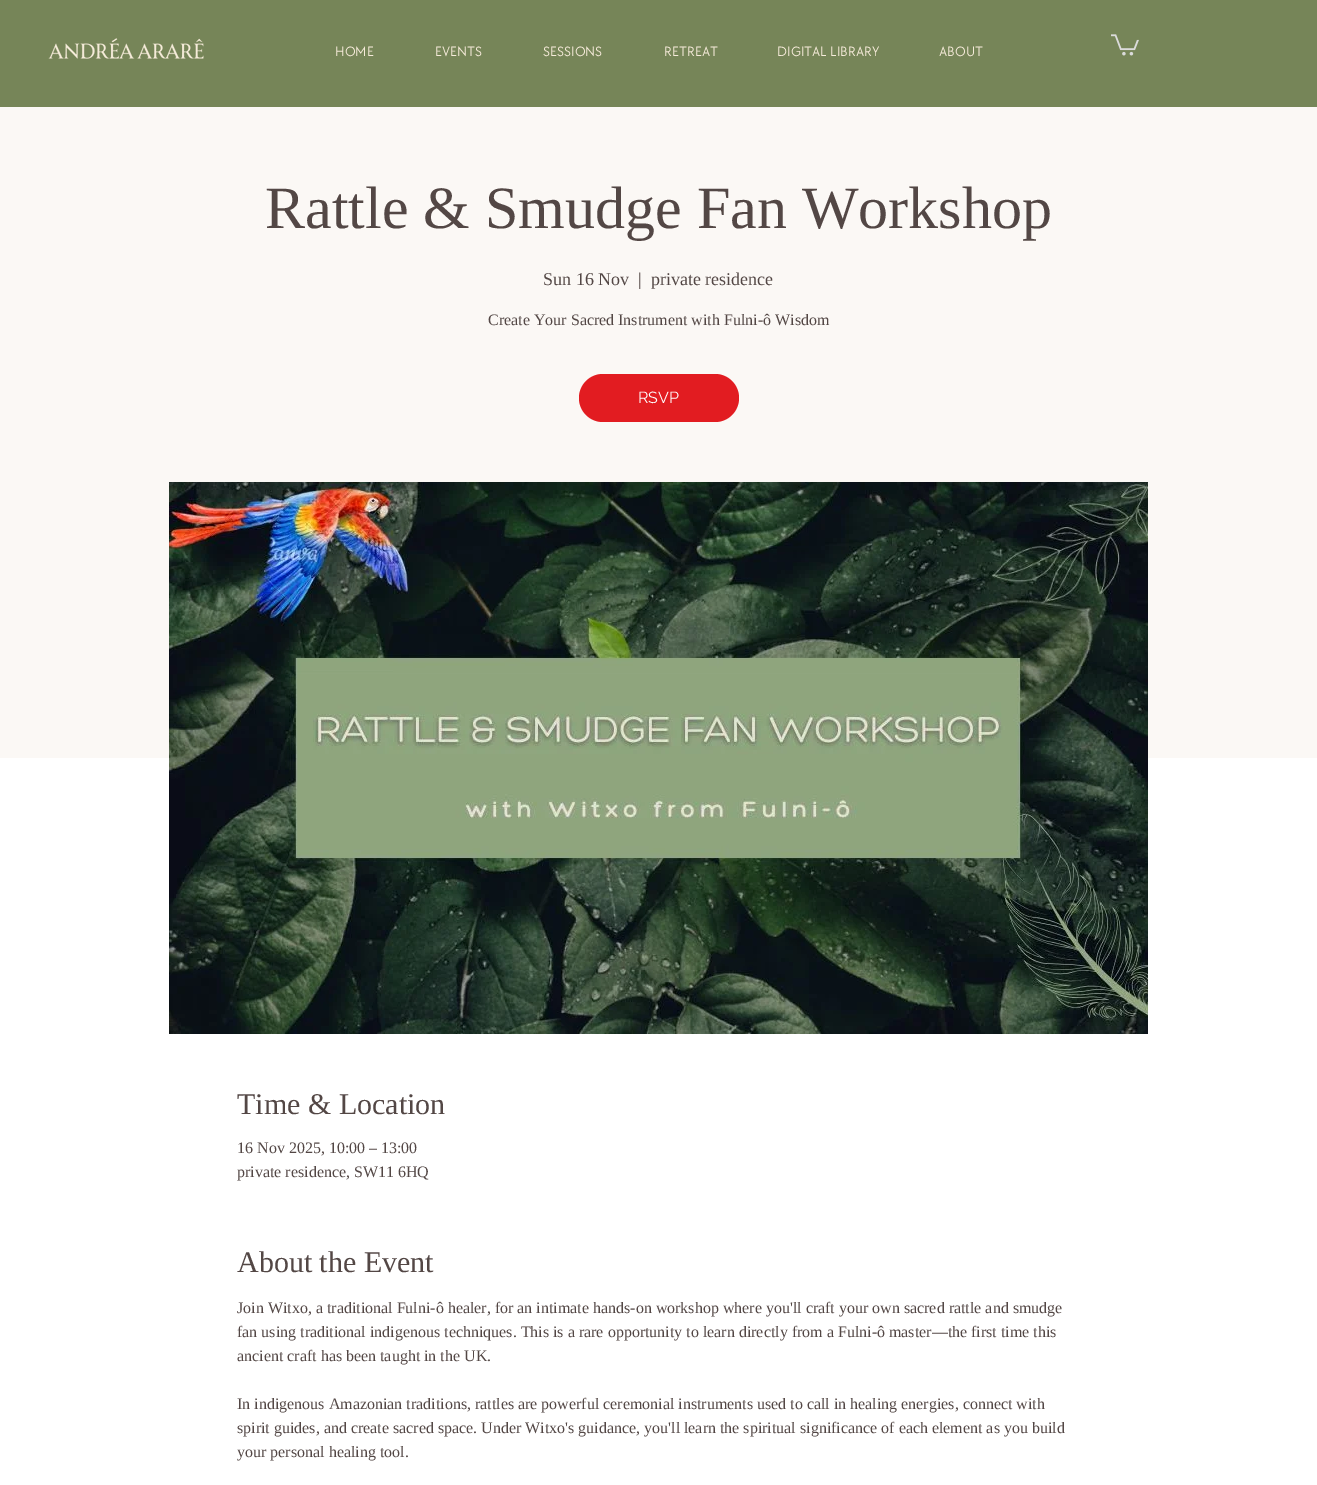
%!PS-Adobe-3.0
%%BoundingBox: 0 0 1317 1485
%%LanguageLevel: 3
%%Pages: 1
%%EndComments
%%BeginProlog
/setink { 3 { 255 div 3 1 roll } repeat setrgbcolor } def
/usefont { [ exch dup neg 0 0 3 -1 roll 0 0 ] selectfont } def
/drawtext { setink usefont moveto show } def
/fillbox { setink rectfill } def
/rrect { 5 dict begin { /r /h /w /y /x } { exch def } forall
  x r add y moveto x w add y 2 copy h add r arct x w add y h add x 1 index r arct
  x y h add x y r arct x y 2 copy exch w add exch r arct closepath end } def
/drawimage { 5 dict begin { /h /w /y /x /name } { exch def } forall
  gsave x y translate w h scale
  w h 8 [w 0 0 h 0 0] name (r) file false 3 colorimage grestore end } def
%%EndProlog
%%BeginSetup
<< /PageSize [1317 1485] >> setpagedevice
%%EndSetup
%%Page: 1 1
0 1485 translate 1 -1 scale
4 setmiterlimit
0 0 1317 1485 255 255 255 fillbox
0 0 1317 107 118 133 88 fillbox
(assets/img1.rgb) 48 38 156 21 drawimage
(HOME) 335 56 /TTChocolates-Regular 14 246 235 218 drawtext
(EVENTS) 435 56 /TTChocolates-Regular 14 246 235 218 drawtext
(SESSIONS) 543 56 /TTChocolates-Regular 14 246 235 218 drawtext
(RETREAT) 664 56 /TTChocolates-Regular 14 246 235 218 drawtext
(DIGITAL LIBRARY) 777 56 /TTChocolates-Regular 14 246 235 218 drawtext
(ABOUT) 939 56 /TTChocolates-Regular 14 246 235 218 drawtext
(assets/img2.rgb) 1111 34 28 22 drawimage
0 107 1317 651 251 248 245 fillbox
(Rattle & Smudge Fan Workshop) 265 228 /LiberationSerif-Regular 60 83 71 69 drawtext
(Sun 16 Nov) 543 285 /LiberationSerif-Regular 18 83 71 69 drawtext
(|) 638 285 /LiberationSerif-Regular 18 83 71 69 drawtext
(private residence) 651 285 /LiberationSerif-Regular 18 83 71 69 drawtext
(Create Your Sacred Instrument with Fulni-ô Wisdom) 488 325 /LiberationSerif-Regular 16 83 71 69 drawtext
226 28 33 setink
579 374 160 48 24 rrect fill
(RSVP) 638 403 /Raleway-Regular 16 255 255 255 drawtext
(assets/img3.rgb) 169 482 979 552 drawimage
(Time & Location) 237 1114 /LiberationSerif-Regular 30 83 71 69 drawtext
(16 Nov 2025, 10:00 – 13:00) 237 1153 /LiberationSerif-Regular 16 83 71 69 drawtext
(private residence, SW11 6HQ) 237 1177 /LiberationSerif-Regular 16 83 71 69 drawtext
(About the Event) 237 1272 /LiberationSerif-Regular 30 83 71 69 drawtext
(Join Witxo, a traditional Fulni-ô healer, for an intimate hands-on workshop where you'll craft your own sacred rattle and smudge) 237 1313 /LiberationSerif-Regular 16 83 71 69 drawtext
(fan using traditional indigenous techniques. This is a rare opportunity to learn directly from a Fulni-ô master—the first time this) 237 1337 /LiberationSerif-Regular 16 83 71 69 drawtext
(ancient craft has been taught in the UK.) 237 1361 /LiberationSerif-Regular 16 83 71 69 drawtext
(In indigenous Amazonian traditions, rattles are powerful ceremonial instruments used to call in healing energies, connect with) 237 1409 /LiberationSerif-Regular 16 83 71 69 drawtext
(spirit guides, and create sacred space. Under Witxo's guidance, you'll learn the spiritual significance of each element as you build) 237 1433 /LiberationSerif-Regular 16 83 71 69 drawtext
(your personal healing tool.) 237 1457 /LiberationSerif-Regular 16 83 71 69 drawtext
showpage
%%EOF
